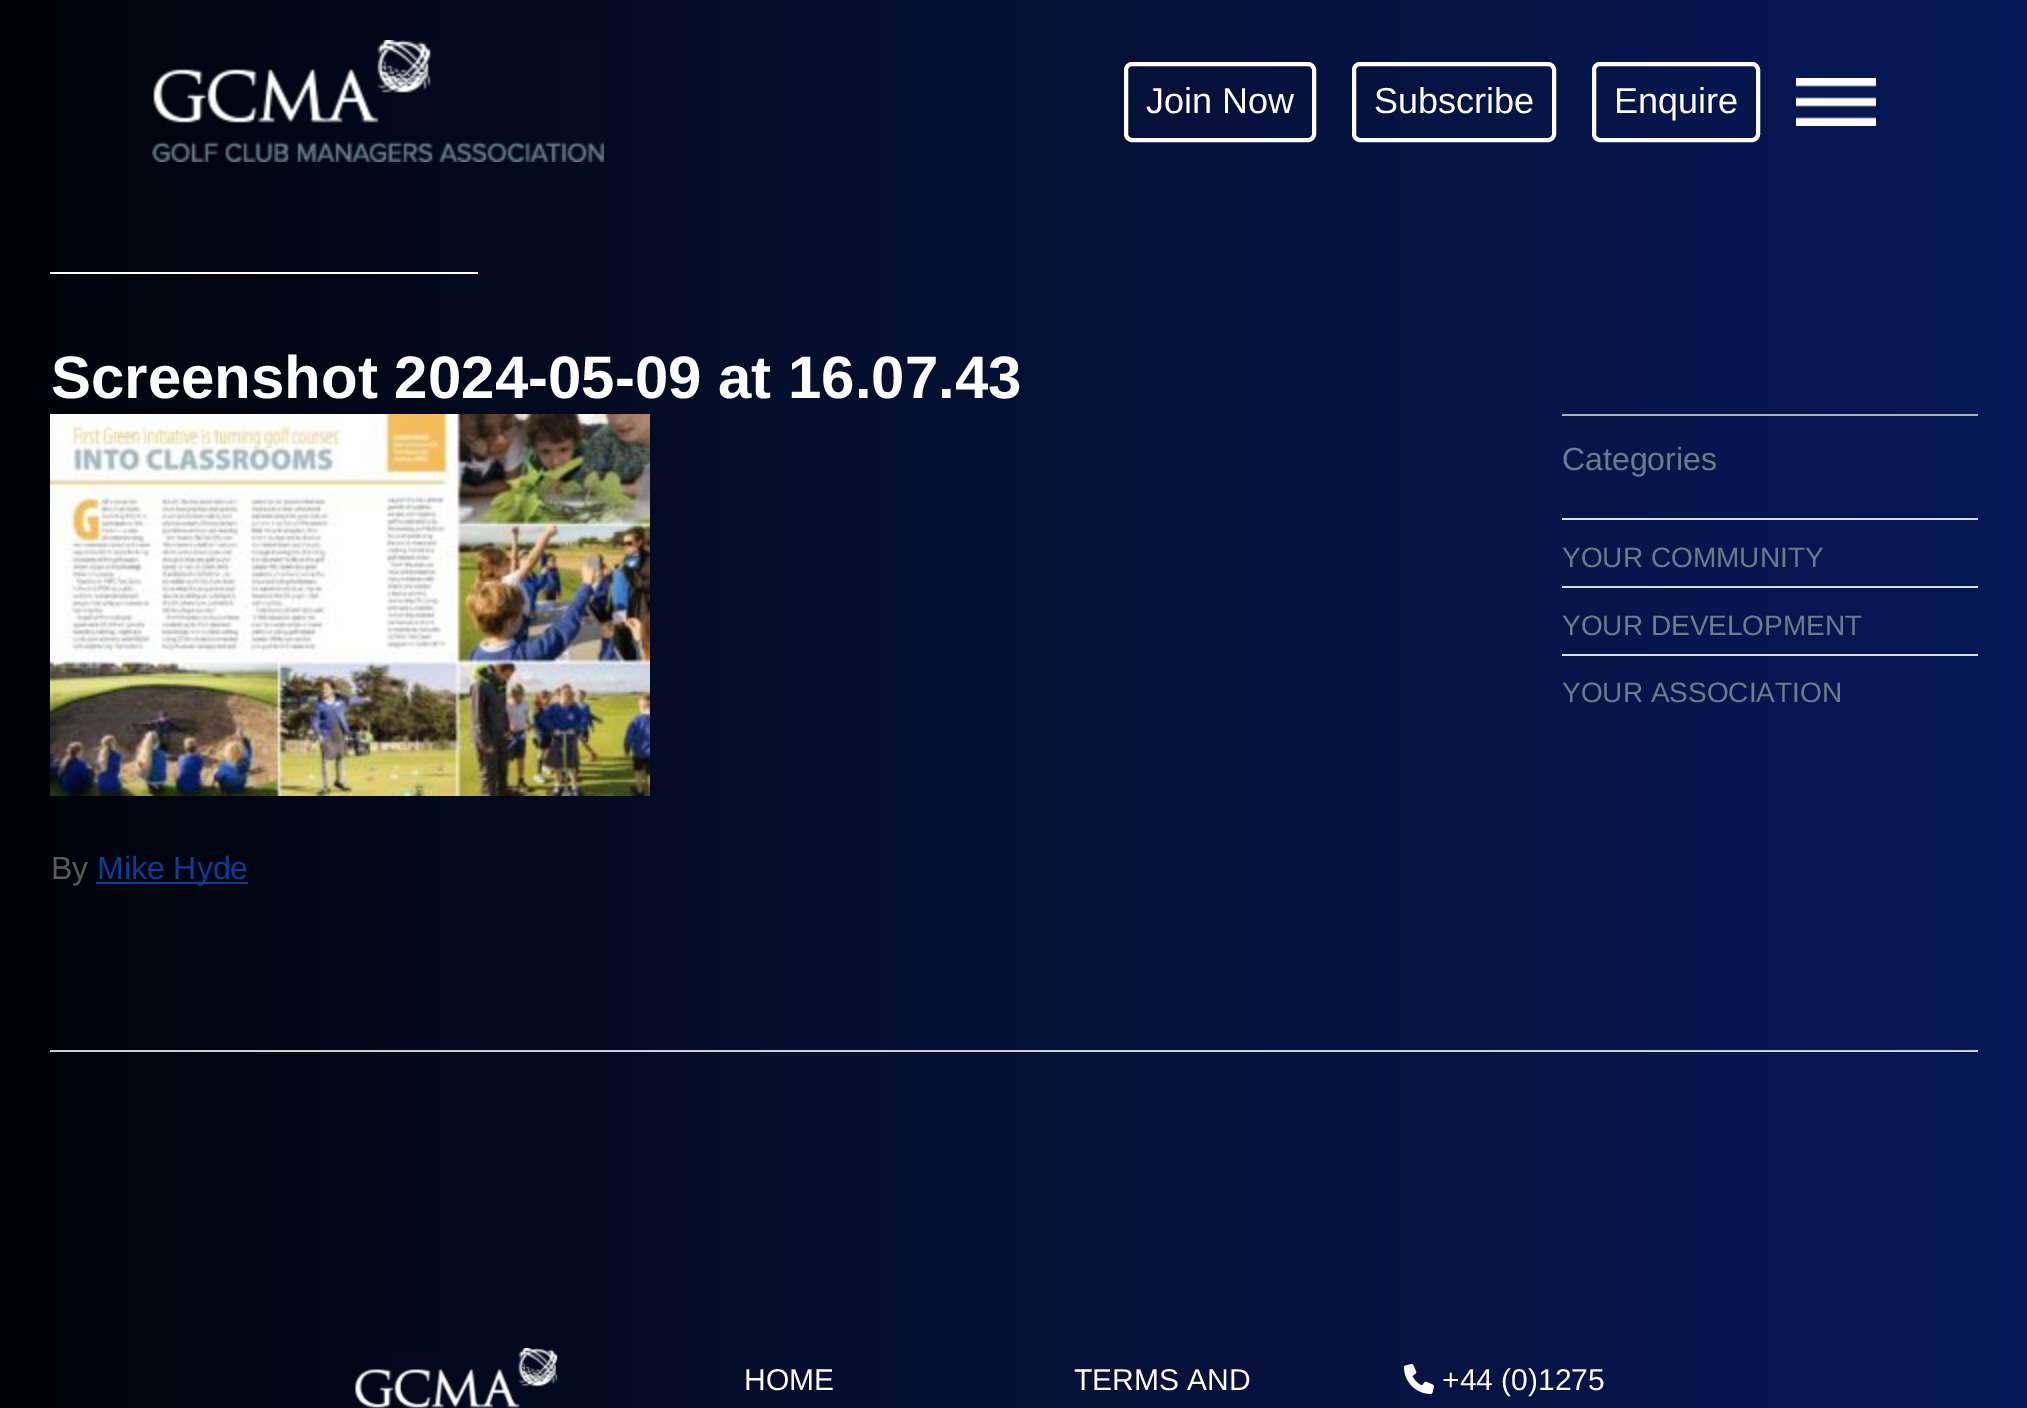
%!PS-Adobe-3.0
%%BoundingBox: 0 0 2027 1408
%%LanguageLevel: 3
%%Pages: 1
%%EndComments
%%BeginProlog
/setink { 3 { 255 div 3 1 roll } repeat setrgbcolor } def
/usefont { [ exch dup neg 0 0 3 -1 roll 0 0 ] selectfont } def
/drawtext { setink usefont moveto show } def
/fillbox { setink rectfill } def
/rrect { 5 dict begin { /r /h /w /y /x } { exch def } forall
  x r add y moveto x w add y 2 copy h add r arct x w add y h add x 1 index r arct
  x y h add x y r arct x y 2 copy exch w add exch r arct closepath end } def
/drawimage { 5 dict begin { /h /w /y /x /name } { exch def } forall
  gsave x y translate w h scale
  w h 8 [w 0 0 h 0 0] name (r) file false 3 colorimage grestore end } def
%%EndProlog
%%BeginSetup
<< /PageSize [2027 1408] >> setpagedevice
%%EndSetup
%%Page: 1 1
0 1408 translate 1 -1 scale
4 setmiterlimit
0 0 2027 1408 255 255 255 fillbox
gsave 0 202 moveto 2027 202 lineto 2027 1408 lineto 0 1408 lineto closepath clip newpath
<< /ShadingType 2 /ColorSpace /DeviceRGB /Coords [0 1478 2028 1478] /Extend [true true] /Function << /FunctionType 3 /Domain [0 1] /Functions [<< /FunctionType 2 /Domain [0 1] /C0 [0 0.008 0.031] /C1 [0.02 0.055 0.173] /N 1 >> << /FunctionType 2 /Domain [0 1] /C0 [0.02 0.055 0.173] /C1 [0.024 0.094 0.345] /N 1 >>] /Bounds [0.39] /Encode [0 1 0 1] >> >> shfill grestore
gsave 0 0 moveto 2027 0 lineto 2027 202 lineto 0 202 lineto closepath clip newpath
<< /ShadingType 2 /ColorSpace /DeviceRGB /Coords [0 101 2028 101] /Extend [true true] /Function << /FunctionType 3 /Domain [0 1] /Functions [<< /FunctionType 2 /Domain [0 1] /C0 [0 0.008 0.031] /C1 [0.02 0.055 0.173] /N 1 >> << /FunctionType 2 /Domain [0 1] /C0 [0.02 0.055 0.173] /C1 [0.024 0.094 0.345] /N 1 >>] /Bounds [0.39] /Encode [0 1 0 1] >> >> shfill grestore
(assets/img1.rgb) 152 40 452 122 drawimage
4 setlinewidth
1126 64 188 76 6 rrect stroke
(Join Now) 1146 113 /LiberationSans-Regular 36 255 255 255 drawtext
1354 64 200 76 6 rrect stroke
(Subscribe) 1374 113 /LiberationSans-Regular 36 255 255 255 drawtext
1594 64 164 76 6 rrect stroke
(Enquire) 1614 113 /LiberationSans-Regular 36 255 255 255 drawtext
(assets/img2.rgb) 1796 78 80 48 drawimage
50 272 428 2 255 255 255 fillbox
(Screenshot 2024-05-09 at 16.07.43) 51 398 /LiberationSans-Bold 60 255 255 255 drawtext
1562 414 416 2 167 179 186 fillbox
(Categories) 1562 470 /LiberationSans-Regular 32 106 126 138 drawtext
1562 518 416 2 214 220 223 fillbox
1562 586 416 2 214 220 223 fillbox
(YOUR COMMUNITY) 1562 567 /LiberationSans-Regular 28 106 126 138 drawtext
1562 654 416 2 214 220 223 fillbox
(YOUR DEVELOPMENT) 1562 635 /LiberationSans-Regular 28 106 126 138 drawtext
(YOUR ASSOCIATION) 1562 702 /LiberationSans-Regular 28 106 126 138 drawtext
(assets/img3.rgb) 50 414 600 382 drawimage
(By) 51 879 /LiberationSans-Regular 32 91 91 91 drawtext
96 882 152 2 9 60 149 fillbox
(Mike Hyde) 97 879 /LiberationSans-Regular 32 9 60 149 drawtext
50 1050 1928 2 199 208 213 fillbox
(assets/img4.rgb) 355 1348 203 60 drawimage
(HOME) 744 1390 /LiberationSans-Regular 30 255 255 255 drawtext
(TERMS AND) 1074 1390 /LiberationSans-Regular 30 255 255 255 drawtext
(assets/img5.rgb) 1404 1364 30 30 drawimage
(+44 \(0\)1275) 1442 1390 /LiberationSans-Regular 30 255 255 255 drawtext
showpage
%%EOF
